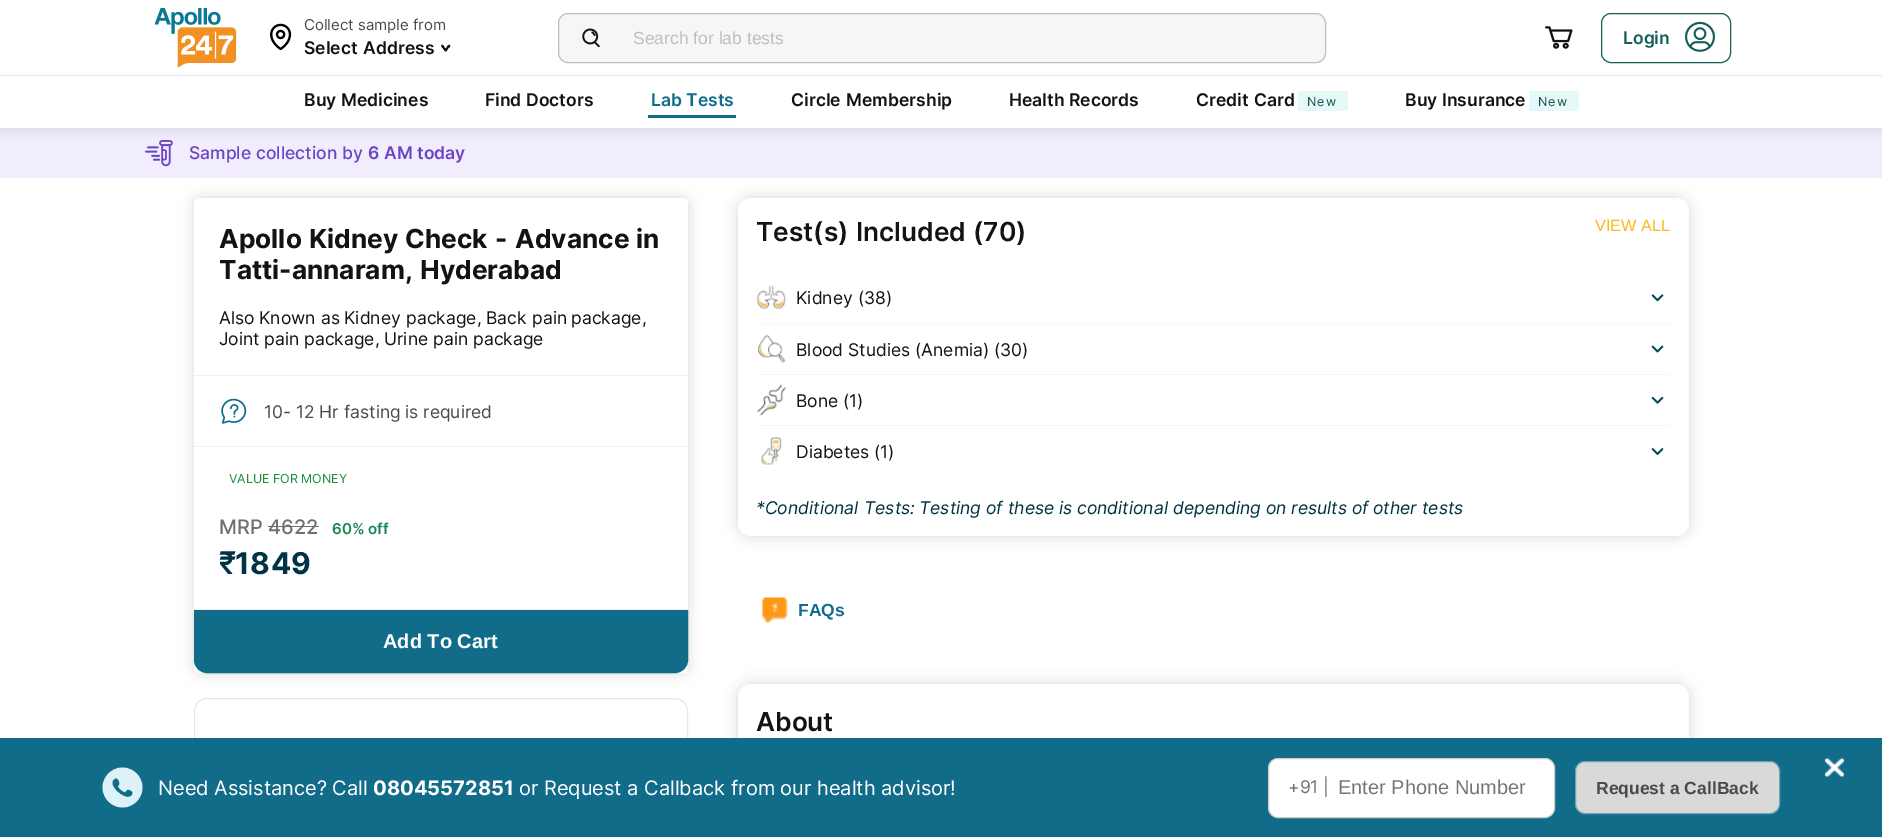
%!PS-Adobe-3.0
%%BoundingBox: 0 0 1882 837
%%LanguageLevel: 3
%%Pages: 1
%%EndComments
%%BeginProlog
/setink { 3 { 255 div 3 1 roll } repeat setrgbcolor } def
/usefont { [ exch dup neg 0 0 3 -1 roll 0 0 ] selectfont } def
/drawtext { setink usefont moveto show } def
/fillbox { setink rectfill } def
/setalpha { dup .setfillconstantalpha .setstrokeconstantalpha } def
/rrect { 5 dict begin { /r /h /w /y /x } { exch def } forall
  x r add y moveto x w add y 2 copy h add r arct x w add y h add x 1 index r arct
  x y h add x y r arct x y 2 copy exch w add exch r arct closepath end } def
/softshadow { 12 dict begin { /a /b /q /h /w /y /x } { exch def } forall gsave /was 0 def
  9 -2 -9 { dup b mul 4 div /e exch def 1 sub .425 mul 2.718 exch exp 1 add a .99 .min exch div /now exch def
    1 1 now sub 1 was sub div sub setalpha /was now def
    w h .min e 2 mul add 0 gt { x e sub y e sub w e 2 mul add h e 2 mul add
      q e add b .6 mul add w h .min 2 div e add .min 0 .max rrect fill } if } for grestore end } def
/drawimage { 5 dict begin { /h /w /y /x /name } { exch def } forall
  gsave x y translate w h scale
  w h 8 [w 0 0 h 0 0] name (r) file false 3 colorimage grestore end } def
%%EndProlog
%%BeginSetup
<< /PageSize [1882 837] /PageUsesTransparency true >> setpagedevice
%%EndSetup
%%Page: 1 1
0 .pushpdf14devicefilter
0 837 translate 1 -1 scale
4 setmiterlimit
0 0 1882 837 255 255 255 fillbox
217 217 215 setink
194 198 494 475 6 7.5 1 softshadow
0 0 0 setink
738 198 951 338 13 7.5 0.16 softshadow
0 128 1882 50 241 237 253 fillbox
(assets/img6.rgb) 145 140 28 27 drawimage
0 0 0 setink
0 3 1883 127 0 6 0.1 softshadow
0 0 1882 128 255 255 255 fillbox
(assets/img1.rgb) 154 8 83 60 drawimage
(assets/img2.rgb) 270 23 22 28 drawimage
(Collect) 304 30 /Inter-Regular 15 75 74 72 drawtext
(sample) 358 30 /Inter-Regular 15 75 74 72 drawtext
(from) 413 30 /Inter-Regular 15 75 74 72 drawtext
(Select) 304 54 /Inter-SemiBold 17.5 18 20 20 drawtext
(Address) 363 54 /Inter-SemiBold 17.5 18 20 20 drawtext
450 45 moveto 451 46 449 48 448 48.5 curveto 447.5 49.5 446.5 52 445 51 curveto 444 50 446 48 446.5 47.5 curveto 447 46.5 448.5 44 450 45 curveto closepath fill
446.5 51 moveto 445 52 443.5 49.5 443 48.5 curveto 442.5 48 440.5 46 441.5 45 curveto 443 44 444 46.5 444.5 47.5 curveto 445 48 447.5 50 446.5 51 curveto closepath fill
246 246 246 setink
558.5 13.5 767 49 9.5 rrect gsave fill grestore
190 190 187 setink
stroke
(assets/img3.rgb) 582 28 18 20 drawimage
(Search for lab tests) 633 44 /LiberationSans-Regular 17.5 190 190 187 drawtext
(assets/img4.rgb) 1545 26 28 23 drawimage
22 93 89 setink
1601.5 13.5 129 49 9.5 rrect stroke
(Login) 1623 44 /Inter-SemiBold 17.5 22 93 89 drawtext
(assets/img5.rgb) 1685 21 30 31 drawimage
0 75 1882 1 231 231 229 fillbox
(Buy) 304 106 /Inter-SemiBold 17.5 18 20 20 drawtext
(Medicines) 341 106 /Inter-SemiBold 17.5 18 20 20 drawtext
(Find) 485 106 /Inter-SemiBold 17.5 18 20 20 drawtext
(Doctors) 526 106 /Inter-SemiBold 17.5 18 20 20 drawtext
648 115 88 3 16 108 137 fillbox
(Lab) 651 106 /Inter-SemiBold 17.5 16 108 137 drawtext
(Tests) 686 106 /Inter-SemiBold 17.5 16 108 137 drawtext
(Circle) 791 106 /Inter-SemiBold 17.5 18 20 20 drawtext
(Membership) 846 106 /Inter-SemiBold 17.5 18 20 20 drawtext
(Health) 1009 106 /Inter-SemiBold 17.5 18 20 20 drawtext
(Records) 1069 106 /Inter-SemiBold 17.5 18 20 20 drawtext
(Credit) 1196 106 /Inter-SemiBold 17.5 18 20 20 drawtext
(Card) 1254 106 /Inter-SemiBold 17.5 18 20 20 drawtext
1298 91 50 20 229 249 248 fillbox
/Inter-Regular 12.5 usefont
26 80 76 setink
1307 106 moveto 1 0 (New) ashow
(Buy) 1405 106 /Inter-SemiBold 17.5 18 20 20 drawtext
(Insurance) 1442 106 /Inter-SemiBold 17.5 18 20 20 drawtext
1529 91 50 20 229 249 248 fillbox
/Inter-Regular 12.5 usefont
26 80 76 setink
1538 106 moveto 1 0 (New) ashow
(Sample) 189 159 /Inter-Medium 17.5 107 69 198 drawtext
(collection) 256 159 /Inter-Medium 17.5 107 69 198 drawtext
(by) 342 159 /Inter-Medium 17.5 107 69 198 drawtext
(6) 368 159 /Inter-SemiBold 17.5 107 69 198 drawtext
(AM) 384 159 /Inter-SemiBold 17.5 107 69 198 drawtext
(today) 417 159 /Inter-SemiBold 17.5 107 69 198 drawtext
255 255 255 setink
194 198 494 475 6 rrect fill
(Apollo) 219 248 /Inter-Bold 26.25 18 20 20 drawtext
(Kidney) 309 248 /Inter-Bold 26.25 18 20 20 drawtext
(Check) 405 248 /Inter-Bold 26.25 18 20 20 drawtext
(-) 495 248 /Inter-Bold 26.25 18 20 20 drawtext
(Advance) 515 248 /Inter-Bold 26.25 18 20 20 drawtext
(in) 636 248 /Inter-Bold 26.25 18 20 20 drawtext
(Tatti-annaram,) 219 279 /Inter-Bold 26.25 18 20 20 drawtext
(Hyderabad) 420 279 /Inter-Bold 26.25 18 20 20 drawtext
(Also) 219 324 /Inter-Regular 17.5 18 20 20 drawtext
(Known) 259 324 /Inter-Regular 17.5 18 20 20 drawtext
(as) 321 324 /Inter-Regular 17.5 18 20 20 drawtext
(Kidney) 344 324 /Inter-Regular 17.5 18 20 20 drawtext
(package,) 406 324 /Inter-Regular 17.5 18 20 20 drawtext
(Back) 486 324 /Inter-Regular 17.5 18 20 20 drawtext
(pain) 532 324 /Inter-Regular 17.5 18 20 20 drawtext
(package,) 571 324 /Inter-Regular 17.5 18 20 20 drawtext
(Joint) 219 345 /Inter-Regular 17.5 18 20 20 drawtext
(pain) 264 345 /Inter-Regular 17.5 18 20 20 drawtext
(package,) 304 345 /Inter-Regular 17.5 18 20 20 drawtext
(Urine) 384 345 /Inter-Regular 17.5 18 20 20 drawtext
(pain) 433 345 /Inter-Regular 17.5 18 20 20 drawtext
(package) 473 345 /Inter-Regular 17.5 18 20 20 drawtext
194 375 494 1 241 241 239 fillbox
194 446 494 1 241 241 239 fillbox
(assets/img7.rgb) 221 398 26 26 drawimage
(10-) 264 418 /Inter-Regular 17.5 75 74 72 drawtext
(12) 296 418 /Inter-Regular 17.5 75 74 72 drawtext
(Hr) 319 418 /Inter-Regular 17.5 75 74 72 drawtext
(fasting) 344 418 /Inter-Regular 17.5 75 74 72 drawtext
(is) 405 418 /Inter-Regular 17.5 75 74 72 drawtext
(required) 423 418 /Inter-Regular 17.5 75 74 72 drawtext
(VALUE) 229 483 /Inter-Regular 12.5 30 142 62 drawtext
(FOR) 273 483 /Inter-Regular 12.5 30 142 62 drawtext
(MONEY) 301 483 /Inter-Regular 12.5 30 142 62 drawtext
(MRP) 219 534 /Inter-Medium 20 113 113 110 drawtext
(4622) 268 534 /Inter-Medium 20 113 113 110 drawtext
268 526 51 1 113 113 110 fillbox
(60%) 332 534 /Inter-SemiBold 15 25 135 84 drawtext
(off) 368 534 /Inter-SemiBold 15 25 135 84 drawtext
/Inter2-Bold 30 usefont
1 51 67 setink
219 574 moveto 0.5 0 (₹) ashow
/Inter-Bold 30 usefont
235 574 moveto 0.5 0 (1849) ashow
194 609 494 1 241 241 239 fillbox
16 108 137 setink
194.5 610.5 moveto 687.5 610.5 lineto 687.5 660 lineto 687.5 667 682 672.5 675 672.5 curveto 207 672.5 lineto 200 672.5 194.5 667 194.5 660 curveto closepath gsave fill grestore
stroke
(Add To Cart) 383 648 /LiberationSans-Bold 20 255 255 255 drawtext
231 231 229 setink
194.5 698.5 493 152 12.5 rrect stroke
255 255 255 setink
738 198 951 338 13 rrect fill
(Test\(s\)) 756 241 /Inter-SemiBold 26.25 18 20 20 drawtext
(Included) 856 241 /Inter-SemiBold 26.25 18 20 20 drawtext
(\(70\)) 973 241 /Inter-SemiBold 26.25 18 20 20 drawtext
(VIEW ALL) 1595 231 /LiberationSans-Regular 16.25 252 183 22 drawtext
756 323 914 1 246 247 244 fillbox
(assets/img8.rgb) 757 285 29 24 drawimage
(Kidney) 796 304 /Inter-Regular 17.5 18 20 20 drawtext
(\(38\)) 858 304 /Inter-Regular 17.5 18 20 20 drawtext
(assets/img9.rgb) 1651 294 13 8 drawimage
756 374 914 1 246 247 244 fillbox
(assets/img10.rgb) 757 334 29 29 drawimage
(Blood) 796 356 /Inter-Regular 17.5 18 20 20 drawtext
(Studies) 848 356 /Inter-Regular 17.5 18 20 20 drawtext
(\(Anemia\)) 915 356 /Inter-Regular 17.5 18 20 20 drawtext
(\(30\)) 994 356 /Inter-Regular 17.5 18 20 20 drawtext
(assets/img11.rgb) 1651 345 13 8 drawimage
756 425 914 1 246 247 244 fillbox
(assets/img12.rgb) 757 384 29 32 drawimage
(Bone) 796 407 /Inter-Regular 17.5 18 20 20 drawtext
(\(1\)) 843 407 /Inter-Regular 17.5 18 20 20 drawtext
(assets/img13.rgb) 1651 396 13 8 drawimage
(assets/img14.rgb) 761 437 21 28 drawimage
(Diabetes) 796 458 /Inter-Regular 17.5 18 20 20 drawtext
(\(1\)) 874 458 /Inter-Regular 17.5 18 20 20 drawtext
(assets/img15.rgb) 1651 448 13 7 drawimage
(*Conditional) 756 514 /Inter-Italic 17.5 1 51 67 drawtext
(Tests:) 864 514 /Inter-Italic 17.5 1 51 67 drawtext
(Testing) 919 514 /Inter-Italic 17.5 1 51 67 drawtext
(of) 986 514 /Inter-Italic 17.5 1 51 67 drawtext
(these) 1008 514 /Inter-Italic 17.5 1 51 67 drawtext
(is) 1059 514 /Inter-Italic 17.5 1 51 67 drawtext
(conditional) 1077 514 /Inter-Italic 17.5 1 51 67 drawtext
(depending) 1173 514 /Inter-Italic 17.5 1 51 67 drawtext
(on) 1266 514 /Inter-Italic 17.5 1 51 67 drawtext
(results) 1291 514 /Inter-Italic 17.5 1 51 67 drawtext
(of) 1352 514 /Inter-Italic 17.5 1 51 67 drawtext
(other) 1373 514 /Inter-Italic 17.5 1 51 67 drawtext
(tests) 1422 514 /Inter-Italic 17.5 1 51 67 drawtext
(assets/img16.rgb) 762 597 27 26 drawimage
(FAQs) 798 616 /LiberationSans-Bold 17.5 16 108 137 drawtext
0 0 0 setink
738 684 951 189 13 7.5 0.16 softshadow
255 255 255 setink
738 684 951 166 13 rrect fill
(About) 756 731 /Inter-SemiBold 26.25 18 20 20 drawtext
0 738 1882 99 16 108 137 fillbox
(assets/img17.rgb) 1825 758 20 19 drawimage
(assets/img18.rgb) 102 767 41 41 drawimage
(Need) 158 795 /Inter-Regular 20 255 255 255 drawtext
(Assistance?) 214 795 /Inter-Regular 20 255 255 255 drawtext
(Call) 332 795 /Inter-Regular 20 255 255 255 drawtext
(08045572851) 373 795 /Inter-Bold 20 255 255 255 drawtext
(or) 519 795 /Inter-Regular 20 255 255 255 drawtext
(Request) 544 795 /Inter-Regular 20 255 255 255 drawtext
(a) 627 795 /Inter-Regular 20 255 255 255 drawtext
(Callback) 644 795 /Inter-Regular 20 255 255 255 drawtext
(from) 731 795 /Inter-Regular 20 255 255 255 drawtext
(our) 780 795 /Inter-Regular 20 255 255 255 drawtext
(health) 817 795 /Inter-Regular 20 255 255 255 drawtext
(advisor!) 881 795 /Inter-Regular 20 255 255 255 drawtext
1268.5 758.5 286 59 9.5 rrect gsave fill grestore
204 204 201 setink
stroke
(+91) 1288 793 /Inter-Regular 17.5 113 113 110 drawtext
(|) 1323 793 /Inter-Regular 17.5 113 113 110 drawtext
(Enter Phone Number) 1338 794 /LiberationSans-Regular 20 117 117 117 drawtext
217 217 215 setink
1575.5 761.5 204 52 9.5 rrect gsave fill grestore
106 164 183 setink
stroke
(Request a CallBack) 1596 794 /LiberationSans-Bold 17.5 75 74 72 drawtext
.poppdf14devicefilter showpage
%%EOF
